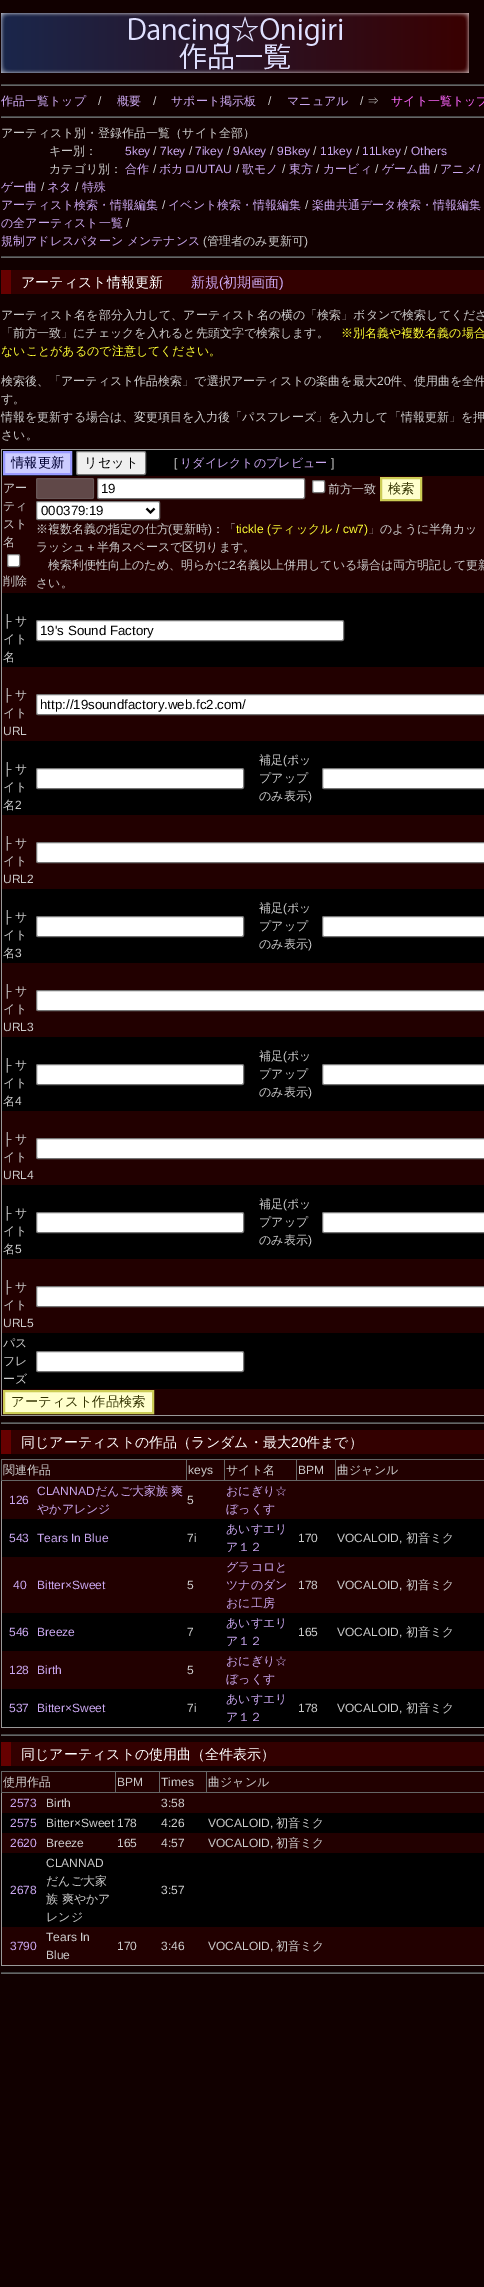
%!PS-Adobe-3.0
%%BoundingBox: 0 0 484 2287
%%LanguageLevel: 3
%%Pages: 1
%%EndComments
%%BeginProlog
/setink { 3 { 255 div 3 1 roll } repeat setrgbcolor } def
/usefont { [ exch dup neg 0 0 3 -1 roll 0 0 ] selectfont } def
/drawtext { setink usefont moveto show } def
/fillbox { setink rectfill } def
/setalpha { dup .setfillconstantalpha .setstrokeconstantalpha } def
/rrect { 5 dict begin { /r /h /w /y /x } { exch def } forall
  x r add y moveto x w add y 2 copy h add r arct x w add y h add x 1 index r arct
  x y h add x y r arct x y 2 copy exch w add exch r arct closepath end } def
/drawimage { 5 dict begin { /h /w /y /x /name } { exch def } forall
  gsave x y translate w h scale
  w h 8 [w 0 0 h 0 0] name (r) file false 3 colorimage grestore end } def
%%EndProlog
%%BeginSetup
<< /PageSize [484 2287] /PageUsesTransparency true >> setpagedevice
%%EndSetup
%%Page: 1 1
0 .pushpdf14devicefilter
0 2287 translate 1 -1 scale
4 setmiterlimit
0 0 484 2287 17 0 0 fillbox
(assets/img1.rgb) 1 13 468 60 drawimage
1 85 483 1 102 102 102 fillbox
1 84 483 1 68 68 68 fillbox
(作品一覧トップ) 1 105 /WenQuanYiZenHei-Medium 12 202 167 240 drawtext
(/) 98 105 /LiberationSans-Regular 12 204 204 204 drawtext
(概要) 117 105 /WenQuanYiZenHei-Medium 12 202 167 240 drawtext
(/) 153 105 /LiberationSans-Regular 12 204 204 204 drawtext
(サポート掲示板) 171 105 /WenQuanYiZenHei-Medium 12 202 167 240 drawtext
(/) 268 105 /LiberationSans-Regular 12 204 204 204 drawtext
(マニュアル) 287 105 /WenQuanYiZenHei-Medium 12 202 167 240 drawtext
(/) 360 105 /LiberationSans-Regular 12 204 204 204 drawtext
(⇒) 367 105 /WenQuanYiZenHei-Medium 12 204 204 204 drawtext
(サイト一覧トップ) 391 105 /WenQuanYiZenHei-Medium 12 255 102 255 drawtext
1 117 483 1 102 102 102 fillbox
1 116 483 1 68 68 68 fillbox
(アーティスト別・登録作品一覧（サイト全部）) 1 137 /WenQuanYiZenHei-Medium 12 204 204 204 drawtext
(キー別：) 49 155 /WenQuanYiZenHei-Medium 12 204 204 204 drawtext
(5key) 125 155 /LiberationSans-Regular 12 202 167 240 drawtext
(/) 153 155 /LiberationSans-Regular 12 204 204 204 drawtext
(7key) 160 155 /LiberationSans-Regular 12 202 167 240 drawtext
(/) 189 155 /LiberationSans-Regular 12 204 204 204 drawtext
(7ikey) 195 155 /LiberationSans-Regular 12 202 167 240 drawtext
(/) 227 155 /LiberationSans-Regular 12 204 204 204 drawtext
(9Akey) 233 155 /LiberationSans-Regular 12 202 167 240 drawtext
(/) 270 155 /LiberationSans-Regular 12 204 204 204 drawtext
(9Bkey) 277 155 /LiberationSans-Regular 12 202 167 240 drawtext
(/) 313 155 /LiberationSans-Regular 12 204 204 204 drawtext
(11key) 320 155 /LiberationSans-Regular 12 202 167 240 drawtext
(/) 356 155 /LiberationSans-Regular 12 204 204 204 drawtext
(11Lkey) 362 155 /LiberationSans-Regular 12 202 167 240 drawtext
(/) 404 155 /LiberationSans-Regular 12 204 204 204 drawtext
(Others) 411 155 /LiberationSans-Regular 12 202 167 240 drawtext
(カテゴリ別：) 49 173 /WenQuanYiZenHei-Medium 12 204 204 204 drawtext
(合作) 125 173 /WenQuanYiZenHei-Medium 12 202 167 240 drawtext
(/) 153 173 /LiberationSans-Regular 12 204 204 204 drawtext
(ボカロ) 159 173 /WenQuanYiZenHei-Medium 12 202 167 240 drawtext
(/UTAU) 196 173 /LiberationSans-Regular 12 202 167 240 drawtext
(/) 236 173 /LiberationSans-Regular 12 204 204 204 drawtext
(歌モノ) 242 173 /WenQuanYiZenHei-Medium 12 202 167 240 drawtext
(/) 282 173 /LiberationSans-Regular 12 204 204 204 drawtext
(東方) 289 173 /WenQuanYiZenHei-Medium 12 202 167 240 drawtext
(/) 316 173 /LiberationSans-Regular 12 204 204 204 drawtext
(カービィ) 323 173 /WenQuanYiZenHei-Medium 12 202 167 240 drawtext
(/) 375 173 /LiberationSans-Regular 12 204 204 204 drawtext
(ゲーム曲) 382 173 /WenQuanYiZenHei-Medium 12 202 167 240 drawtext
(/) 434 173 /LiberationSans-Regular 12 204 204 204 drawtext
(アニメ) 440 173 /WenQuanYiZenHei-Medium 12 202 167 240 drawtext
(/) 477 173 /LiberationSans-Regular 12 202 167 240 drawtext
(ゲー曲) 1 191 /WenQuanYiZenHei-Medium 12 202 167 240 drawtext
(/) 41 191 /LiberationSans-Regular 12 204 204 204 drawtext
(ネタ) 47 191 /WenQuanYiZenHei-Medium 12 202 167 240 drawtext
(/) 75 191 /LiberationSans-Regular 12 204 204 204 drawtext
(特殊) 82 191 /WenQuanYiZenHei-Medium 12 202 167 240 drawtext
(アーティスト検索・情報編集) 1 209 /WenQuanYiZenHei-Medium 12 202 167 240 drawtext
(/) 162 209 /LiberationSans-Regular 12 204 204 204 drawtext
(イベント検索・情報編集) 168 209 /WenQuanYiZenHei-Medium 12 202 167 240 drawtext
(/) 305 209 /LiberationSans-Regular 12 204 204 204 drawtext
(楽曲共通データ検索・情報編集) 312 209 /WenQuanYiZenHei-Medium 12 202 167 240 drawtext
(の全アーティスト一覧) 1 227 /WenQuanYiZenHei-Medium 12 202 167 240 drawtext
(/) 126 227 /LiberationSans-Regular 12 204 204 204 drawtext
(規制アドレスパターン メンテナンス) 1 245 /WenQuanYiZenHei-Medium 12 202 167 240 drawtext
(\() 203 245 /LiberationSans-Regular 12 204 204 204 drawtext
(管理者のみ更新可) 207 245 /WenQuanYiZenHei-Medium 12 204 204 204 drawtext
(\)) 304 245 /LiberationSans-Regular 12 204 204 204 drawtext
1 257 483 1 102 102 102 fillbox
1 256 483 1 68 68 68 fillbox
11 270 473 24 51 0 0 fillbox
1 270 10 24 102 0 0 fillbox
(アーティスト情報更新) 21 287 /WenQuanYiZenHei-Medium 14 255 255 255 drawtext
(新規) 191 287 /WenQuanYiZenHei-Medium 14 202 167 240 drawtext
(\() 219 287 /LiberationSans-Regular 14 202 167 240 drawtext
(初期画面) 223 287 /WenQuanYiZenHei-Medium 14 202 167 240 drawtext
(\)) 279 287 /LiberationSans-Regular 14 202 167 240 drawtext
(アーティスト名を部分入力して、アーティスト名の横の「検索」ボタンで検索してくださ) 1 319 /WenQuanYiZenHei-Medium 12 204 204 204 drawtext
(「前方一致」にチェックを入れると先頭文字で検索します。) 1 337 /WenQuanYiZenHei-Medium 12 204 204 204 drawtext
(※別名義や複数名義の場合) 341 337 /WenQuanYiZenHei-Medium 12 255 255 51 drawtext
(ないことがあるので注意してください。) 1 355 /WenQuanYiZenHei-Medium 12 255 255 51 drawtext
(検索後、「アーティスト作品検索」で選択アーティストの楽曲を最大) 1 385 /WenQuanYiZenHei-Medium 12 204 204 204 drawtext
(20) 377 385 /LiberationSans-Regular 12 204 204 204 drawtext
(件、使用曲を全件) 390 385 /WenQuanYiZenHei-Medium 12 204 204 204 drawtext
(す。) 1 403 /WenQuanYiZenHei-Medium 12 204 204 204 drawtext
(情報を更新する場合は、変更項目を入力後「パスフレーズ」を入力して「情報更新」を押) 1 421 /WenQuanYiZenHei-Medium 12 204 204 204 drawtext
(さい。) 1 439 /WenQuanYiZenHei-Medium 12 204 204 204 drawtext
1 449 483 1 153 153 153 fillbox
1 1415 483 1 153 153 153 fillbox
1 449 1 967 153 153 153 fillbox
2 450 482 26 0 0 0 fillbox
204 204 255 setink
4 452 moveto 71 452 lineto 71 474 lineto 4 474 lineto closepath gsave fill grestore
153 153 255 setink
2 setlinewidth
stroke
(情報更新) 11 467 /WenQuanYiZenHei-Medium 13.3 0 0 51 drawtext
239 239 239 setink
76.5 451.5 69 23 1.5 rrect gsave fill grestore
118 118 118 setink
1 setlinewidth
stroke
(リセット) 84 467 /WenQuanYiZenHei-Medium 13.3 0 0 0 drawtext
([) 174 467 /LiberationSans-Regular 12 204 204 204 drawtext
(リダイレクトのプレビュー) 180 467 /WenQuanYiZenHei-Medium 12 202 167 240 drawtext
(]) 331 467 /LiberationSans-Regular 12 204 204 204 drawtext
2 476 482 117 34 0 0 fillbox
(アー) 3 492 /WenQuanYiZenHei-Medium 12 204 204 204 drawtext
(ティ) 3 510 /WenQuanYiZenHei-Medium 12 204 204 204 drawtext
(スト) 3 528 /WenQuanYiZenHei-Medium 12 204 204 204 drawtext
(名) 3 546 /WenQuanYiZenHei-Medium 12 204 204 204 drawtext
255 255 255 setink
7.5 554.5 12 12 1.5 rrect gsave fill grestore
118 118 118 setink
stroke
(削除) 3 585 /WenQuanYiZenHei-Medium 12 204 204 204 drawtext
96 72 72 setink
36 478 58 21 2 rrect fill
0.3 setalpha
118 118 118 setink
36.5 478.5 57 20 1.5 rrect stroke
1 setalpha
255 255 255 setink
97.5 478.5 207 20 1.5 rrect gsave fill grestore
118 118 118 setink
stroke
(19) 101 493 /LiberationSans-Regular 13.3 0 0 0 drawtext
255 255 255 setink
312.5 480.5 12 12 1.5 rrect gsave fill grestore
118 118 118 setink
stroke
(前方一致) 328 493 /WenQuanYiZenHei-Medium 12 204 204 204 drawtext
255 255 204 setink
381 478 moveto 421 478 lineto 421 500 lineto 381 500 lineto closepath gsave fill grestore
204 204 85 setink
2 setlinewidth
stroke
(検索) 388 493 /WenQuanYiZenHei-Medium 13.3 51 51 0 drawtext
255 255 255 setink
36.5 501.5 123 18 1.5 rrect gsave fill grestore
118 118 118 setink
1 setlinewidth
stroke
0 0 0 setink
2 setlinewidth
146.5 508.5 moveto 150.5 512.5 lineto 154.5 508.5 lineto stroke
(000379:19) 41 515 /LiberationSans-Regular 13.3 0 0 0 drawtext
(※複数名義の指定の仕方) 36 533 /WenQuanYiZenHei-Medium 12 204 204 204 drawtext
(\() 168 533 /LiberationSans-Regular 12 204 204 204 drawtext
(更新時) 172 533 /WenQuanYiZenHei-Medium 12 204 204 204 drawtext
(\)) 208 533 /LiberationSans-Regular 12 204 204 204 drawtext
(：「) 212 533 /WenQuanYiZenHei-Medium 12 204 204 204 drawtext
(tickle \() 236 533 /LiberationSans-Regular 12 255 255 51 drawtext
(ティックル) 271 533 /WenQuanYiZenHei-Medium 12 255 255 51 drawtext
(/ cw7\)) 336 533 /LiberationSans-Regular 12 255 255 51 drawtext
(」のように半角カッ) 368 533 /WenQuanYiZenHei-Medium 12 204 204 204 drawtext
(ラッシュ＋半角スペースで区切ります。) 36 551 /WenQuanYiZenHei-Medium 12 204 204 204 drawtext
(検索利便性向上のため、明らかに) 48 569 /WenQuanYiZenHei-Medium 12 204 204 204 drawtext
(2) 229 569 /LiberationSans-Regular 12 204 204 204 drawtext
(名義以上併用している場合は両方明記して更新) 236 569 /WenQuanYiZenHei-Medium 12 204 204 204 drawtext
(さい。) 36 587 /WenQuanYiZenHei-Medium 12 204 204 204 drawtext
2 593 482 74 0 0 0 fillbox
(├) 3 625 /LiberationSans-Regular 12 204 204 204 drawtext
(サ) 15 625 /WenQuanYiZenHei-Medium 12 204 204 204 drawtext
(イト) 3 643 /WenQuanYiZenHei-Medium 12 204 204 204 drawtext
(名) 3 661 /WenQuanYiZenHei-Medium 12 204 204 204 drawtext
255 255 255 setink
36.5 620.5 307 20 1.5 rrect gsave fill grestore
118 118 118 setink
1 setlinewidth
stroke
(19's Sound Factory) 40 635 /LiberationSans-Regular 13.3 0 0 0 drawtext
2 667 482 74 34 0 0 fillbox
(├) 3 699 /LiberationSans-Regular 12 204 204 204 drawtext
(サ) 15 699 /WenQuanYiZenHei-Medium 12 204 204 204 drawtext
(イト) 3 717 /WenQuanYiZenHei-Medium 12 204 204 204 drawtext
(URL) 3 735 /LiberationSans-Regular 12 204 204 204 drawtext
255 255 255 setink
36.5 694.5 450 20 1.5 rrect gsave fill grestore
118 118 118 setink
stroke
(http://19soundfactory.web.fc2.com/) 40 709 /LiberationSans-Regular 13.3 0 0 0 drawtext
2 741 482 74 0 0 0 fillbox
(├) 3 773 /LiberationSans-Regular 12 204 204 204 drawtext
(サ) 15 773 /WenQuanYiZenHei-Medium 12 204 204 204 drawtext
(イト) 3 791 /WenQuanYiZenHei-Medium 12 204 204 204 drawtext
(名) 3 809 /WenQuanYiZenHei-Medium 12 204 204 204 drawtext
(2) 15 809 /LiberationSans-Regular 12 204 204 204 drawtext
255 255 255 setink
36.5 768.5 207 20 1.5 rrect gsave fill grestore
118 118 118 setink
stroke
(補足) 259 764 /WenQuanYiZenHei-Medium 12 204 204 204 drawtext
(\() 283 764 /LiberationSans-Regular 12 204 204 204 drawtext
(ポッ) 287 764 /WenQuanYiZenHei-Medium 12 204 204 204 drawtext
(プアップ) 259 782 /WenQuanYiZenHei-Medium 12 204 204 204 drawtext
(のみ表示) 259 800 /WenQuanYiZenHei-Medium 12 204 204 204 drawtext
(\)) 308 800 /LiberationSans-Regular 12 204 204 204 drawtext
255 255 255 setink
322.5 768.5 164 20 1.5 rrect gsave fill grestore
118 118 118 setink
stroke
2 815 482 74 34 0 0 fillbox
(├) 3 847 /LiberationSans-Regular 12 204 204 204 drawtext
(サ) 15 847 /WenQuanYiZenHei-Medium 12 204 204 204 drawtext
(イト) 3 865 /WenQuanYiZenHei-Medium 12 204 204 204 drawtext
(URL2) 3 883 /LiberationSans-Regular 12 204 204 204 drawtext
255 255 255 setink
36.5 842.5 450 20 1.5 rrect gsave fill grestore
118 118 118 setink
stroke
2 889 482 74 0 0 0 fillbox
(├) 3 921 /LiberationSans-Regular 12 204 204 204 drawtext
(サ) 15 921 /WenQuanYiZenHei-Medium 12 204 204 204 drawtext
(イト) 3 939 /WenQuanYiZenHei-Medium 12 204 204 204 drawtext
(名) 3 957 /WenQuanYiZenHei-Medium 12 204 204 204 drawtext
(3) 15 957 /LiberationSans-Regular 12 204 204 204 drawtext
255 255 255 setink
36.5 916.5 207 20 1.5 rrect gsave fill grestore
118 118 118 setink
stroke
(補足) 259 912 /WenQuanYiZenHei-Medium 12 204 204 204 drawtext
(\() 283 912 /LiberationSans-Regular 12 204 204 204 drawtext
(ポッ) 287 912 /WenQuanYiZenHei-Medium 12 204 204 204 drawtext
(プアップ) 259 930 /WenQuanYiZenHei-Medium 12 204 204 204 drawtext
(のみ表示) 259 948 /WenQuanYiZenHei-Medium 12 204 204 204 drawtext
(\)) 308 948 /LiberationSans-Regular 12 204 204 204 drawtext
255 255 255 setink
322.5 916.5 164 20 1.5 rrect gsave fill grestore
118 118 118 setink
stroke
2 963 482 74 34 0 0 fillbox
(├) 3 995 /LiberationSans-Regular 12 204 204 204 drawtext
(サ) 15 995 /WenQuanYiZenHei-Medium 12 204 204 204 drawtext
(イト) 3 1013 /WenQuanYiZenHei-Medium 12 204 204 204 drawtext
(URL3) 3 1031 /LiberationSans-Regular 12 204 204 204 drawtext
255 255 255 setink
36.5 990.5 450 20 1.5 rrect gsave fill grestore
118 118 118 setink
stroke
2 1037 482 74 0 0 0 fillbox
(├) 3 1069 /LiberationSans-Regular 12 204 204 204 drawtext
(サ) 15 1069 /WenQuanYiZenHei-Medium 12 204 204 204 drawtext
(イト) 3 1087 /WenQuanYiZenHei-Medium 12 204 204 204 drawtext
(名) 3 1105 /WenQuanYiZenHei-Medium 12 204 204 204 drawtext
(4) 15 1105 /LiberationSans-Regular 12 204 204 204 drawtext
255 255 255 setink
36.5 1064.5 207 20 1.5 rrect gsave fill grestore
118 118 118 setink
stroke
(補足) 259 1060 /WenQuanYiZenHei-Medium 12 204 204 204 drawtext
(\() 283 1060 /LiberationSans-Regular 12 204 204 204 drawtext
(ポッ) 287 1060 /WenQuanYiZenHei-Medium 12 204 204 204 drawtext
(プアップ) 259 1078 /WenQuanYiZenHei-Medium 12 204 204 204 drawtext
(のみ表示) 259 1096 /WenQuanYiZenHei-Medium 12 204 204 204 drawtext
(\)) 308 1096 /LiberationSans-Regular 12 204 204 204 drawtext
255 255 255 setink
322.5 1064.5 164 20 1.5 rrect gsave fill grestore
118 118 118 setink
stroke
2 1111 482 74 34 0 0 fillbox
(├) 3 1143 /LiberationSans-Regular 12 204 204 204 drawtext
(サ) 15 1143 /WenQuanYiZenHei-Medium 12 204 204 204 drawtext
(イト) 3 1161 /WenQuanYiZenHei-Medium 12 204 204 204 drawtext
(URL4) 3 1179 /LiberationSans-Regular 12 204 204 204 drawtext
255 255 255 setink
36.5 1138.5 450 20 1.5 rrect gsave fill grestore
118 118 118 setink
stroke
2 1185 482 74 0 0 0 fillbox
(├) 3 1217 /LiberationSans-Regular 12 204 204 204 drawtext
(サ) 15 1217 /WenQuanYiZenHei-Medium 12 204 204 204 drawtext
(イト) 3 1235 /WenQuanYiZenHei-Medium 12 204 204 204 drawtext
(名) 3 1253 /WenQuanYiZenHei-Medium 12 204 204 204 drawtext
(5) 15 1253 /LiberationSans-Regular 12 204 204 204 drawtext
255 255 255 setink
36.5 1212.5 207 20 1.5 rrect gsave fill grestore
118 118 118 setink
stroke
(補足) 259 1208 /WenQuanYiZenHei-Medium 12 204 204 204 drawtext
(\() 283 1208 /LiberationSans-Regular 12 204 204 204 drawtext
(ポッ) 287 1208 /WenQuanYiZenHei-Medium 12 204 204 204 drawtext
(プアップ) 259 1226 /WenQuanYiZenHei-Medium 12 204 204 204 drawtext
(のみ表示) 259 1244 /WenQuanYiZenHei-Medium 12 204 204 204 drawtext
(\)) 308 1244 /LiberationSans-Regular 12 204 204 204 drawtext
255 255 255 setink
322.5 1212.5 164 20 1.5 rrect gsave fill grestore
118 118 118 setink
stroke
2 1259 482 74 34 0 0 fillbox
(├) 3 1291 /LiberationSans-Regular 12 204 204 204 drawtext
(サ) 15 1291 /WenQuanYiZenHei-Medium 12 204 204 204 drawtext
(イト) 3 1309 /WenQuanYiZenHei-Medium 12 204 204 204 drawtext
(URL5) 3 1327 /LiberationSans-Regular 12 204 204 204 drawtext
255 255 255 setink
36.5 1286.5 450 20 1.5 rrect gsave fill grestore
118 118 118 setink
stroke
2 1333 482 56 0 0 0 fillbox
(パス) 3 1347 /WenQuanYiZenHei-Medium 12 204 204 204 drawtext
(フレ) 3 1365 /WenQuanYiZenHei-Medium 12 204 204 204 drawtext
(ーズ) 3 1383 /WenQuanYiZenHei-Medium 12 204 204 204 drawtext
255 255 255 setink
36.5 1351.5 207 20 1.5 rrect gsave fill grestore
118 118 118 setink
stroke
2 1389 482 26 34 0 0 fillbox
255 255 204 setink
4 1391 moveto 153 1391 lineto 153 1413 lineto 4 1413 lineto closepath gsave fill grestore
204 204 85 setink
2 setlinewidth
stroke
(アーティスト作品検索) 11 1406 /WenQuanYiZenHei-Medium 13.3 51 51 0 drawtext
1 1423 483 1 102 102 102 fillbox
1 1422 483 1 68 68 68 fillbox
11 1430 473 24 51 0 0 fillbox
1 1430 10 24 102 0 0 fillbox
(同じアーティストの作品（ランダム・最大) 21 1447 /WenQuanYiZenHei-Medium 14 255 255 255 drawtext
(20) 291 1447 /LiberationSans-Regular 14 255 255 255 drawtext
(件まで）) 306 1447 /WenQuanYiZenHei-Medium 14 255 255 255 drawtext
1 1727 483 1 153 153 153 fillbox
1 1481 1 247 153 153 153 fillbox
2 1460 184 20 34 0 0 fillbox
335 1459 149 1 102 102 102 fillbox
335 1480 149 1 102 102 102 fillbox
335 1459 1 22 102 102 102 fillbox
296 1459 40 1 102 102 102 fillbox
296 1480 40 1 102 102 102 fillbox
296 1459 1 22 102 102 102 fillbox
224 1459 73 1 102 102 102 fillbox
224 1480 73 1 102 102 102 fillbox
224 1459 1 22 102 102 102 fillbox
186 1459 39 1 102 102 102 fillbox
186 1480 39 1 102 102 102 fillbox
186 1459 1 22 102 102 102 fillbox
1 1459 186 1 102 102 102 fillbox
1 1480 186 1 102 102 102 fillbox
1 1459 1 22 102 102 102 fillbox
(関連作品) 3 1474 /WenQuanYiZenHei-Medium 12 204 204 204 drawtext
187 1460 37 20 34 0 0 fillbox
(keys) 188 1474 /LiberationSans-Regular 12 204 204 204 drawtext
225 1460 71 20 34 0 0 fillbox
(サイト名) 226 1474 /WenQuanYiZenHei-Medium 12 204 204 204 drawtext
297 1460 38 20 34 0 0 fillbox
(BPM) 298 1474 /LiberationSans-Regular 12 204 204 204 drawtext
336 1460 148 20 34 0 0 fillbox
(曲ジャンル) 337 1474 /WenQuanYiZenHei-Medium 12 204 204 204 drawtext
2 1481 482 38 34 0 0 fillbox
(126) 9 1504 /LiberationSans-Regular 12 202 167 240 drawtext
(CLANNAD) 37 1495 /LiberationSans-Regular 12 202 167 240 drawtext
(だんご大家族 爽) 95 1495 /WenQuanYiZenHei-Medium 12 202 167 240 drawtext
(やかアレンジ) 37 1513 /WenQuanYiZenHei-Medium 12 202 167 240 drawtext
(5) 187 1504 /LiberationSans-Regular 12 204 204 204 drawtext
(おにぎり☆) 226 1495 /WenQuanYiZenHei-Medium 12 202 167 240 drawtext
(ぼっくす) 226 1513 /WenQuanYiZenHei-Medium 12 202 167 240 drawtext
2 1519 482 38 0 0 0 fillbox
(543) 9 1542 /LiberationSans-Regular 12 202 167 240 drawtext
(Tears In Blue) 37 1542 /LiberationSans-Regular 12 202 167 240 drawtext
(7i) 187 1542 /LiberationSans-Regular 12 204 204 204 drawtext
(あいすエリ) 226 1533 /WenQuanYiZenHei-Medium 12 202 167 240 drawtext
(ア１２) 226 1551 /WenQuanYiZenHei-Medium 12 202 167 240 drawtext
(170) 298 1542 /LiberationSans-Regular 12 204 204 204 drawtext
(VOCALOID,) 337 1542 /LiberationSans-Regular 12 204 204 204 drawtext
(初音ミク) 406 1542 /WenQuanYiZenHei-Medium 12 204 204 204 drawtext
2 1557 482 56 34 0 0 fillbox
(40) 13 1589 /LiberationSans-Regular 12 202 167 240 drawtext
(Bitter×Sweet) 37 1589 /LiberationSans-Regular 12 202 167 240 drawtext
(5) 187 1589 /LiberationSans-Regular 12 204 204 204 drawtext
(グラコロと) 226 1571 /WenQuanYiZenHei-Medium 12 202 167 240 drawtext
(ツナのダン) 226 1589 /WenQuanYiZenHei-Medium 12 202 167 240 drawtext
(おに工房) 226 1607 /WenQuanYiZenHei-Medium 12 202 167 240 drawtext
(178) 298 1589 /LiberationSans-Regular 12 204 204 204 drawtext
(VOCALOID,) 337 1589 /LiberationSans-Regular 12 204 204 204 drawtext
(初音ミク) 406 1589 /WenQuanYiZenHei-Medium 12 204 204 204 drawtext
2 1613 482 38 0 0 0 fillbox
(546) 9 1636 /LiberationSans-Regular 12 202 167 240 drawtext
(Breeze) 37 1636 /LiberationSans-Regular 12 202 167 240 drawtext
(7) 187 1636 /LiberationSans-Regular 12 204 204 204 drawtext
(あいすエリ) 226 1627 /WenQuanYiZenHei-Medium 12 202 167 240 drawtext
(ア１２) 226 1645 /WenQuanYiZenHei-Medium 12 202 167 240 drawtext
(165) 298 1636 /LiberationSans-Regular 12 204 204 204 drawtext
(VOCALOID,) 337 1636 /LiberationSans-Regular 12 204 204 204 drawtext
(初音ミク) 406 1636 /WenQuanYiZenHei-Medium 12 204 204 204 drawtext
2 1651 482 38 34 0 0 fillbox
(128) 9 1674 /LiberationSans-Regular 12 202 167 240 drawtext
(Birth) 37 1674 /LiberationSans-Regular 12 202 167 240 drawtext
(5) 187 1674 /LiberationSans-Regular 12 204 204 204 drawtext
(おにぎり☆) 226 1665 /WenQuanYiZenHei-Medium 12 202 167 240 drawtext
(ぼっくす) 226 1683 /WenQuanYiZenHei-Medium 12 202 167 240 drawtext
2 1689 482 38 0 0 0 fillbox
(537) 9 1712 /LiberationSans-Regular 12 202 167 240 drawtext
(Bitter×Sweet) 37 1712 /LiberationSans-Regular 12 202 167 240 drawtext
(7i) 187 1712 /LiberationSans-Regular 12 204 204 204 drawtext
(あいすエリ) 226 1703 /WenQuanYiZenHei-Medium 12 202 167 240 drawtext
(ア１２) 226 1721 /WenQuanYiZenHei-Medium 12 202 167 240 drawtext
(178) 298 1712 /LiberationSans-Regular 12 204 204 204 drawtext
(VOCALOID,) 337 1712 /LiberationSans-Regular 12 204 204 204 drawtext
(初音ミク) 406 1712 /WenQuanYiZenHei-Medium 12 204 204 204 drawtext
1 1735 483 1 102 102 102 fillbox
1 1734 483 1 68 68 68 fillbox
11 1742 473 24 51 0 0 fillbox
1 1742 10 24 102 0 0 fillbox
(同じアーティストの使用曲（全件表示）) 21 1759 /WenQuanYiZenHei-Medium 14 255 255 255 drawtext
1 1965 483 1 153 153 153 fillbox
1 1793 1 173 153 153 153 fillbox
2 1772 113 20 34 0 0 fillbox
206 1771 278 1 102 102 102 fillbox
206 1792 278 1 102 102 102 fillbox
206 1771 1 22 102 102 102 fillbox
159 1771 48 1 102 102 102 fillbox
159 1792 48 1 102 102 102 fillbox
159 1771 1 22 102 102 102 fillbox
115 1771 45 1 102 102 102 fillbox
115 1792 45 1 102 102 102 fillbox
115 1771 1 22 102 102 102 fillbox
1 1771 115 1 102 102 102 fillbox
1 1792 115 1 102 102 102 fillbox
1 1771 1 22 102 102 102 fillbox
(使用作品) 3 1786 /WenQuanYiZenHei-Medium 12 204 204 204 drawtext
116 1772 43 20 34 0 0 fillbox
(BPM) 117 1786 /LiberationSans-Regular 12 204 204 204 drawtext
160 1772 46 20 34 0 0 fillbox
(Times) 161 1786 /LiberationSans-Regular 12 204 204 204 drawtext
207 1772 277 20 34 0 0 fillbox
(曲ジャンル) 208 1786 /WenQuanYiZenHei-Medium 12 204 204 204 drawtext
2 1793 482 20 34 0 0 fillbox
(2573) 10 1807 /LiberationSans-Regular 12 202 167 240 drawtext
(Birth) 46 1807 /LiberationSans-Regular 12 204 204 204 drawtext
(3:58) 161 1807 /LiberationSans-Regular 12 204 204 204 drawtext
2 1813 482 20 0 0 0 fillbox
(2575) 10 1827 /LiberationSans-Regular 12 202 167 240 drawtext
(Bitter×Sweet) 46 1827 /LiberationSans-Regular 12 204 204 204 drawtext
(178) 117 1827 /LiberationSans-Regular 12 204 204 204 drawtext
(4:26) 161 1827 /LiberationSans-Regular 12 204 204 204 drawtext
(VOCALOID,) 208 1827 /LiberationSans-Regular 12 204 204 204 drawtext
(初音ミク) 276 1827 /WenQuanYiZenHei-Medium 12 204 204 204 drawtext
2 1833 482 20 34 0 0 fillbox
(2620) 10 1847 /LiberationSans-Regular 12 202 167 240 drawtext
(Breeze) 46 1847 /LiberationSans-Regular 12 204 204 204 drawtext
(165) 117 1847 /LiberationSans-Regular 12 204 204 204 drawtext
(4:57) 161 1847 /LiberationSans-Regular 12 204 204 204 drawtext
(VOCALOID,) 208 1847 /LiberationSans-Regular 12 204 204 204 drawtext
(初音ミク) 276 1847 /WenQuanYiZenHei-Medium 12 204 204 204 drawtext
2 1853 482 74 0 0 0 fillbox
(2678) 10 1894 /LiberationSans-Regular 12 202 167 240 drawtext
(CLANNAD) 46 1867 /LiberationSans-Regular 12 204 204 204 drawtext
(だんご大家) 46 1885 /WenQuanYiZenHei-Medium 12 204 204 204 drawtext
(族 爽やかア) 46 1903 /WenQuanYiZenHei-Medium 12 204 204 204 drawtext
(レンジ) 46 1921 /WenQuanYiZenHei-Medium 12 204 204 204 drawtext
(3:57) 161 1894 /LiberationSans-Regular 12 204 204 204 drawtext
2 1927 482 38 34 0 0 fillbox
(3790) 10 1950 /LiberationSans-Regular 12 202 167 240 drawtext
(Tears In) 46 1941 /LiberationSans-Regular 12 204 204 204 drawtext
(Blue) 46 1959 /LiberationSans-Regular 12 204 204 204 drawtext
(170) 117 1950 /LiberationSans-Regular 12 204 204 204 drawtext
(3:46) 161 1950 /LiberationSans-Regular 12 204 204 204 drawtext
(VOCALOID,) 208 1950 /LiberationSans-Regular 12 204 204 204 drawtext
(初音ミク) 276 1950 /WenQuanYiZenHei-Medium 12 204 204 204 drawtext
1 1973 483 1 102 102 102 fillbox
1 1972 483 1 68 68 68 fillbox
.poppdf14devicefilter showpage
%%EOF
